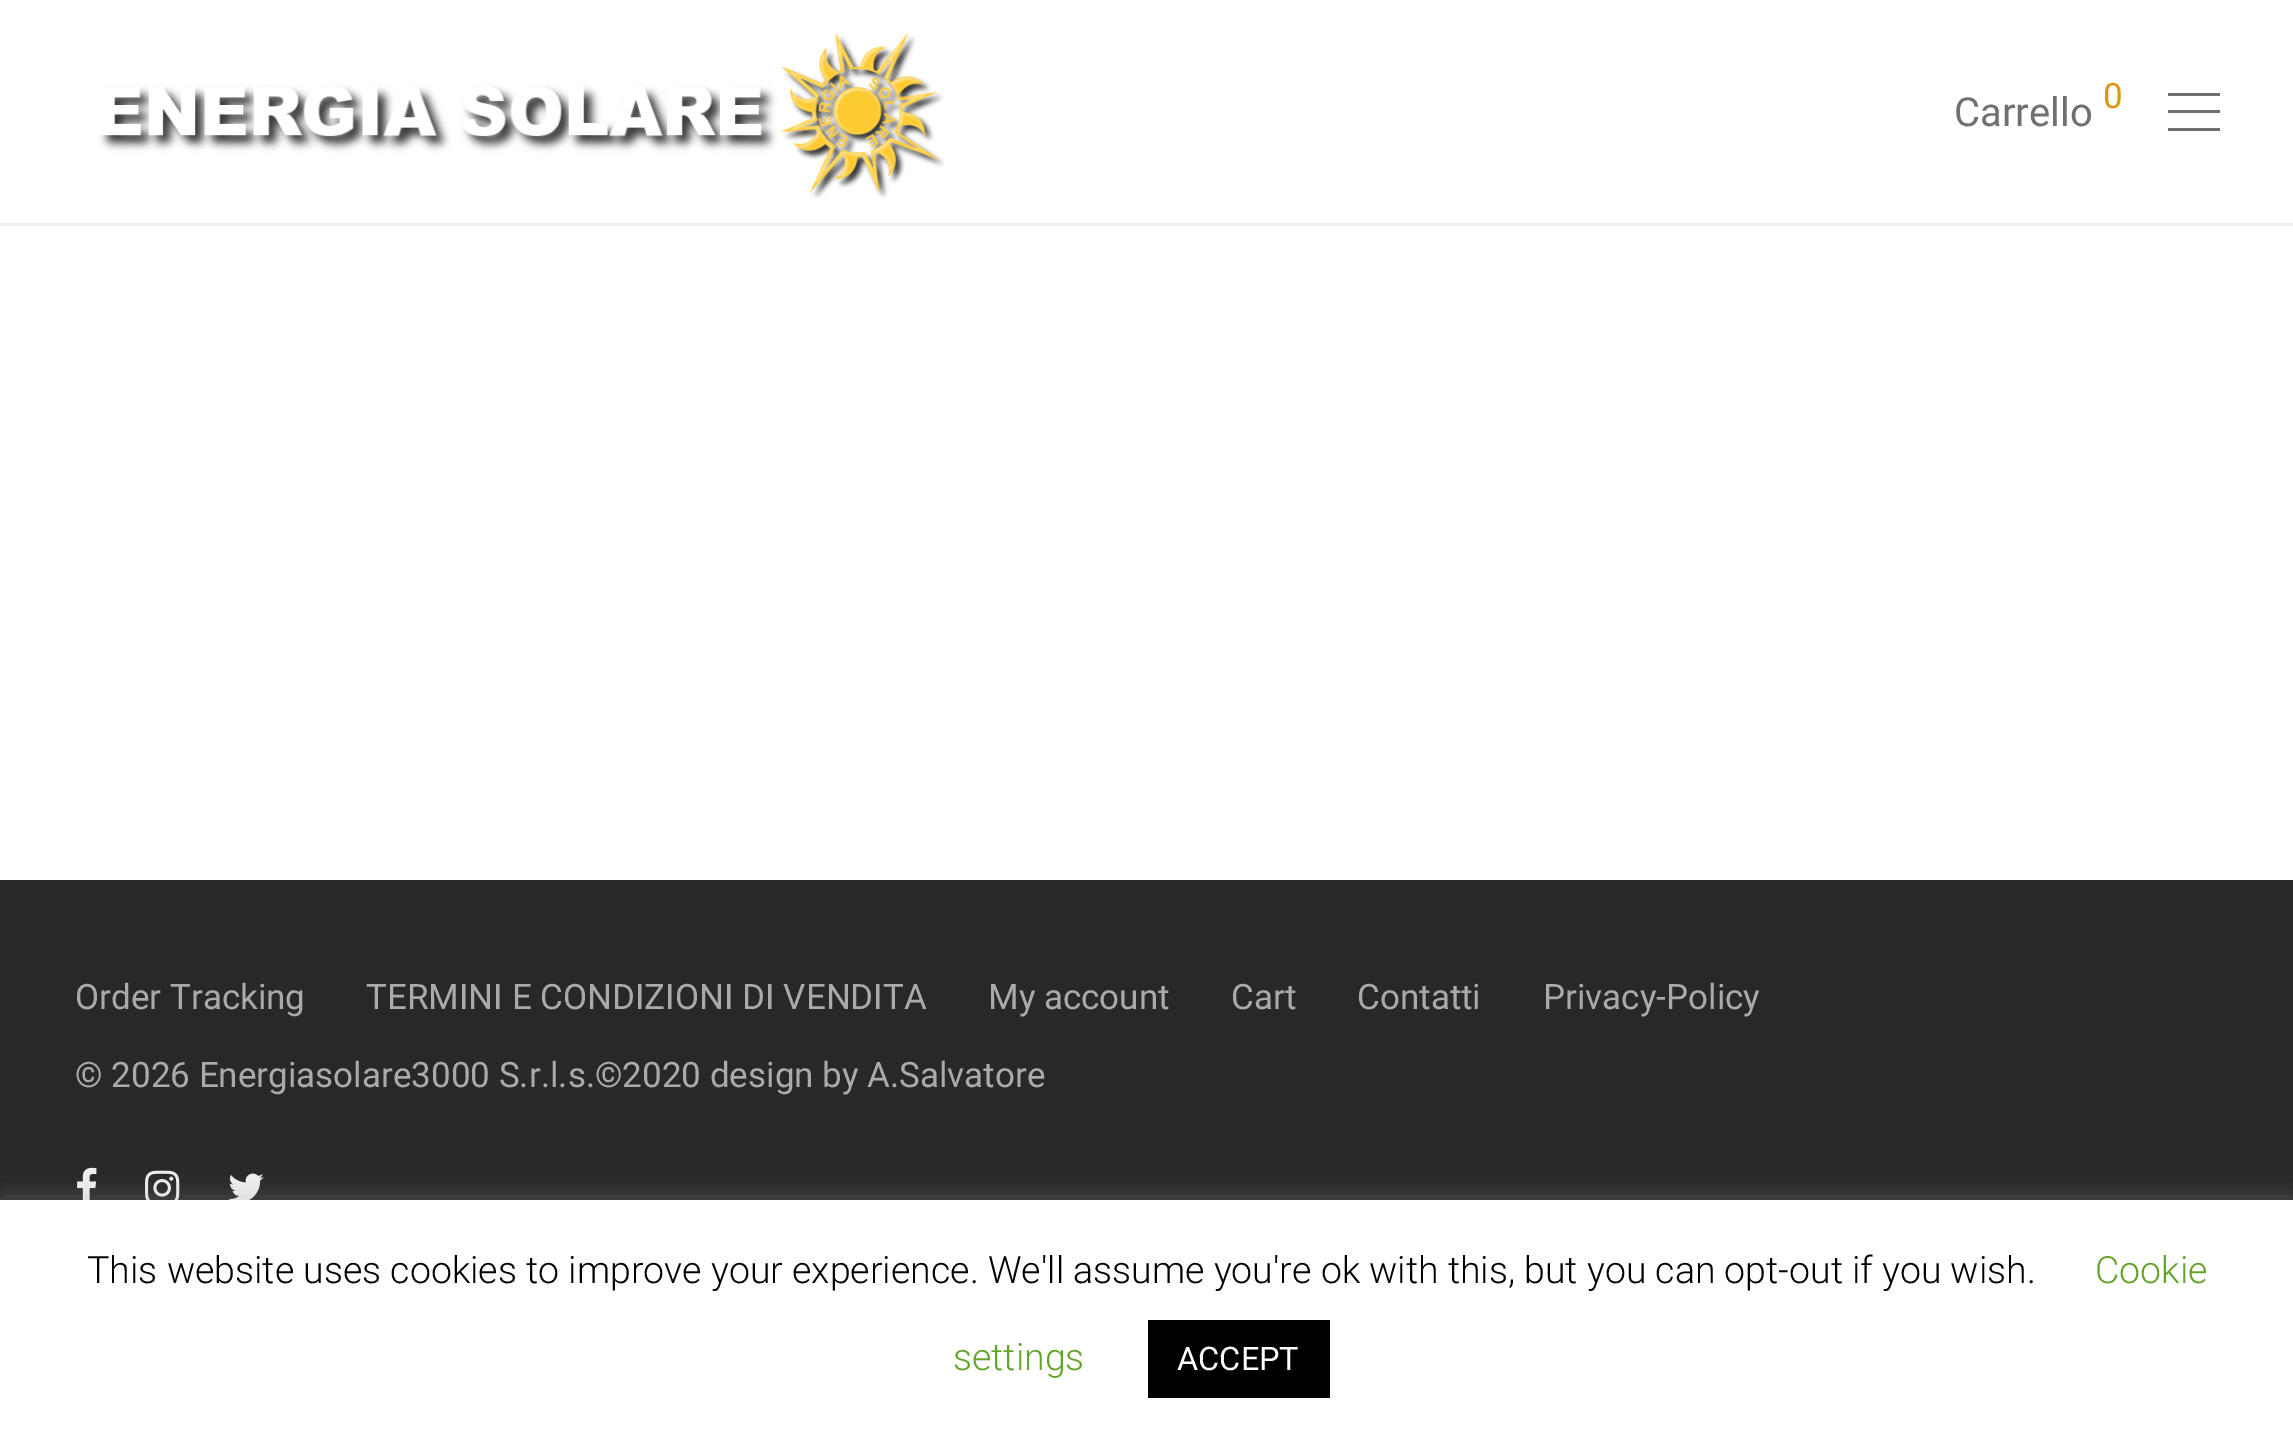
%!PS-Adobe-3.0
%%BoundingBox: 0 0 2293 1440
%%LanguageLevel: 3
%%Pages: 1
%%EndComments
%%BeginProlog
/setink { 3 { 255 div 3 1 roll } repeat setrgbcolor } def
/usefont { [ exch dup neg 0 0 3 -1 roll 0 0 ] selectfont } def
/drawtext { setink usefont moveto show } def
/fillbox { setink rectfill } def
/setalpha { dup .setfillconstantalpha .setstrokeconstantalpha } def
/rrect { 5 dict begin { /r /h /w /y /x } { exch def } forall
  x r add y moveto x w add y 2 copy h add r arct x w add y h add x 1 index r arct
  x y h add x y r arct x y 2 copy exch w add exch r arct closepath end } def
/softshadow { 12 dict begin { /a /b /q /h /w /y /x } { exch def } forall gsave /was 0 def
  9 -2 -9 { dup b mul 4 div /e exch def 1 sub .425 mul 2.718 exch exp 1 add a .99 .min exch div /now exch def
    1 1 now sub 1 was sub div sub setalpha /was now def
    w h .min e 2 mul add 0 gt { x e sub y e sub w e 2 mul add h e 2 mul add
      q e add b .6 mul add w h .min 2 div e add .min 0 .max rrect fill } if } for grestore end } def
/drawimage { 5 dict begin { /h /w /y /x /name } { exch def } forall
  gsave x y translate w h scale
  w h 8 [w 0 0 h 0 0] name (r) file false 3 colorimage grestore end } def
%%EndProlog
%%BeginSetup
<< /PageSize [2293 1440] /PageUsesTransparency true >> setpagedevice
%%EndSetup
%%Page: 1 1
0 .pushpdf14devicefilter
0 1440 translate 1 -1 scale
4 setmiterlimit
0 0 2293 1440 255 255 255 fillbox
0 223 2293 3 238 238 238 fillbox
(assets/img1.rgb) 99 32 845 166 drawimage
(Carrello) 1954 126 /Roboto-Regular 40 112 112 112 drawtext
(0) 2103 108 /Roboto-Regular 35 220 152 20 drawtext
2168 93 52 3 112 112 112 fillbox
2168 110 52 3 112 112 112 fillbox
2168 128 52 3 112 112 112 fillbox
0 880 2293 320 40 40 40 fillbox
(Order Tracking) 75 1009 /Roboto-Regular 35 170 170 170 drawtext
(TERMINI E CONDIZIONI DI VENDITA) 366 1009 /Roboto-Regular 35 170 170 170 drawtext
(My account) 988 1009 /Roboto-Regular 35 170 170 170 drawtext
(Cart) 1231 1009 /Roboto-Regular 35 170 170 170 drawtext
(Contatti) 1357 1009 /Roboto-Regular 35 170 170 170 drawtext
(Privacy-Policy) 1543 1009 /Roboto-Regular 35 170 170 170 drawtext
(© 2026 Energiasolare3000 S.r.l.s.©2020 design by A.Salvatore) 75 1087 /Roboto-Regular 35 170 170 170 drawtext
(assets/img2.rgb) 77 1167 20 33 drawimage
(assets/img3.rgb) 145 1170 35 30 drawimage
(assets/img4.rgb) 228 1173 36 27 drawimage
172 171 171 setink
0 1198 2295 240 0 12.5 0.3 softshadow
0 1200 2293 240 255 255 255 fillbox
(This website uses cookies to improve your experience. We'll assume you're ok with this, but you can opt-out if you wish.) 87 1283 /Roboto-Light 37.5 0 0 0 drawtext
(Cookie) 2095 1283 /Roboto-Light 37.5 98 163 41 drawtext
(settings) 953 1370 /Roboto-Light 37.5 98 163 41 drawtext
1148 1320 182 78 0 0 0 fillbox
(ACCEPT) 1177 1370 /Roboto-Regular 32.5 255 255 255 drawtext
.poppdf14devicefilter showpage
%%EOF
